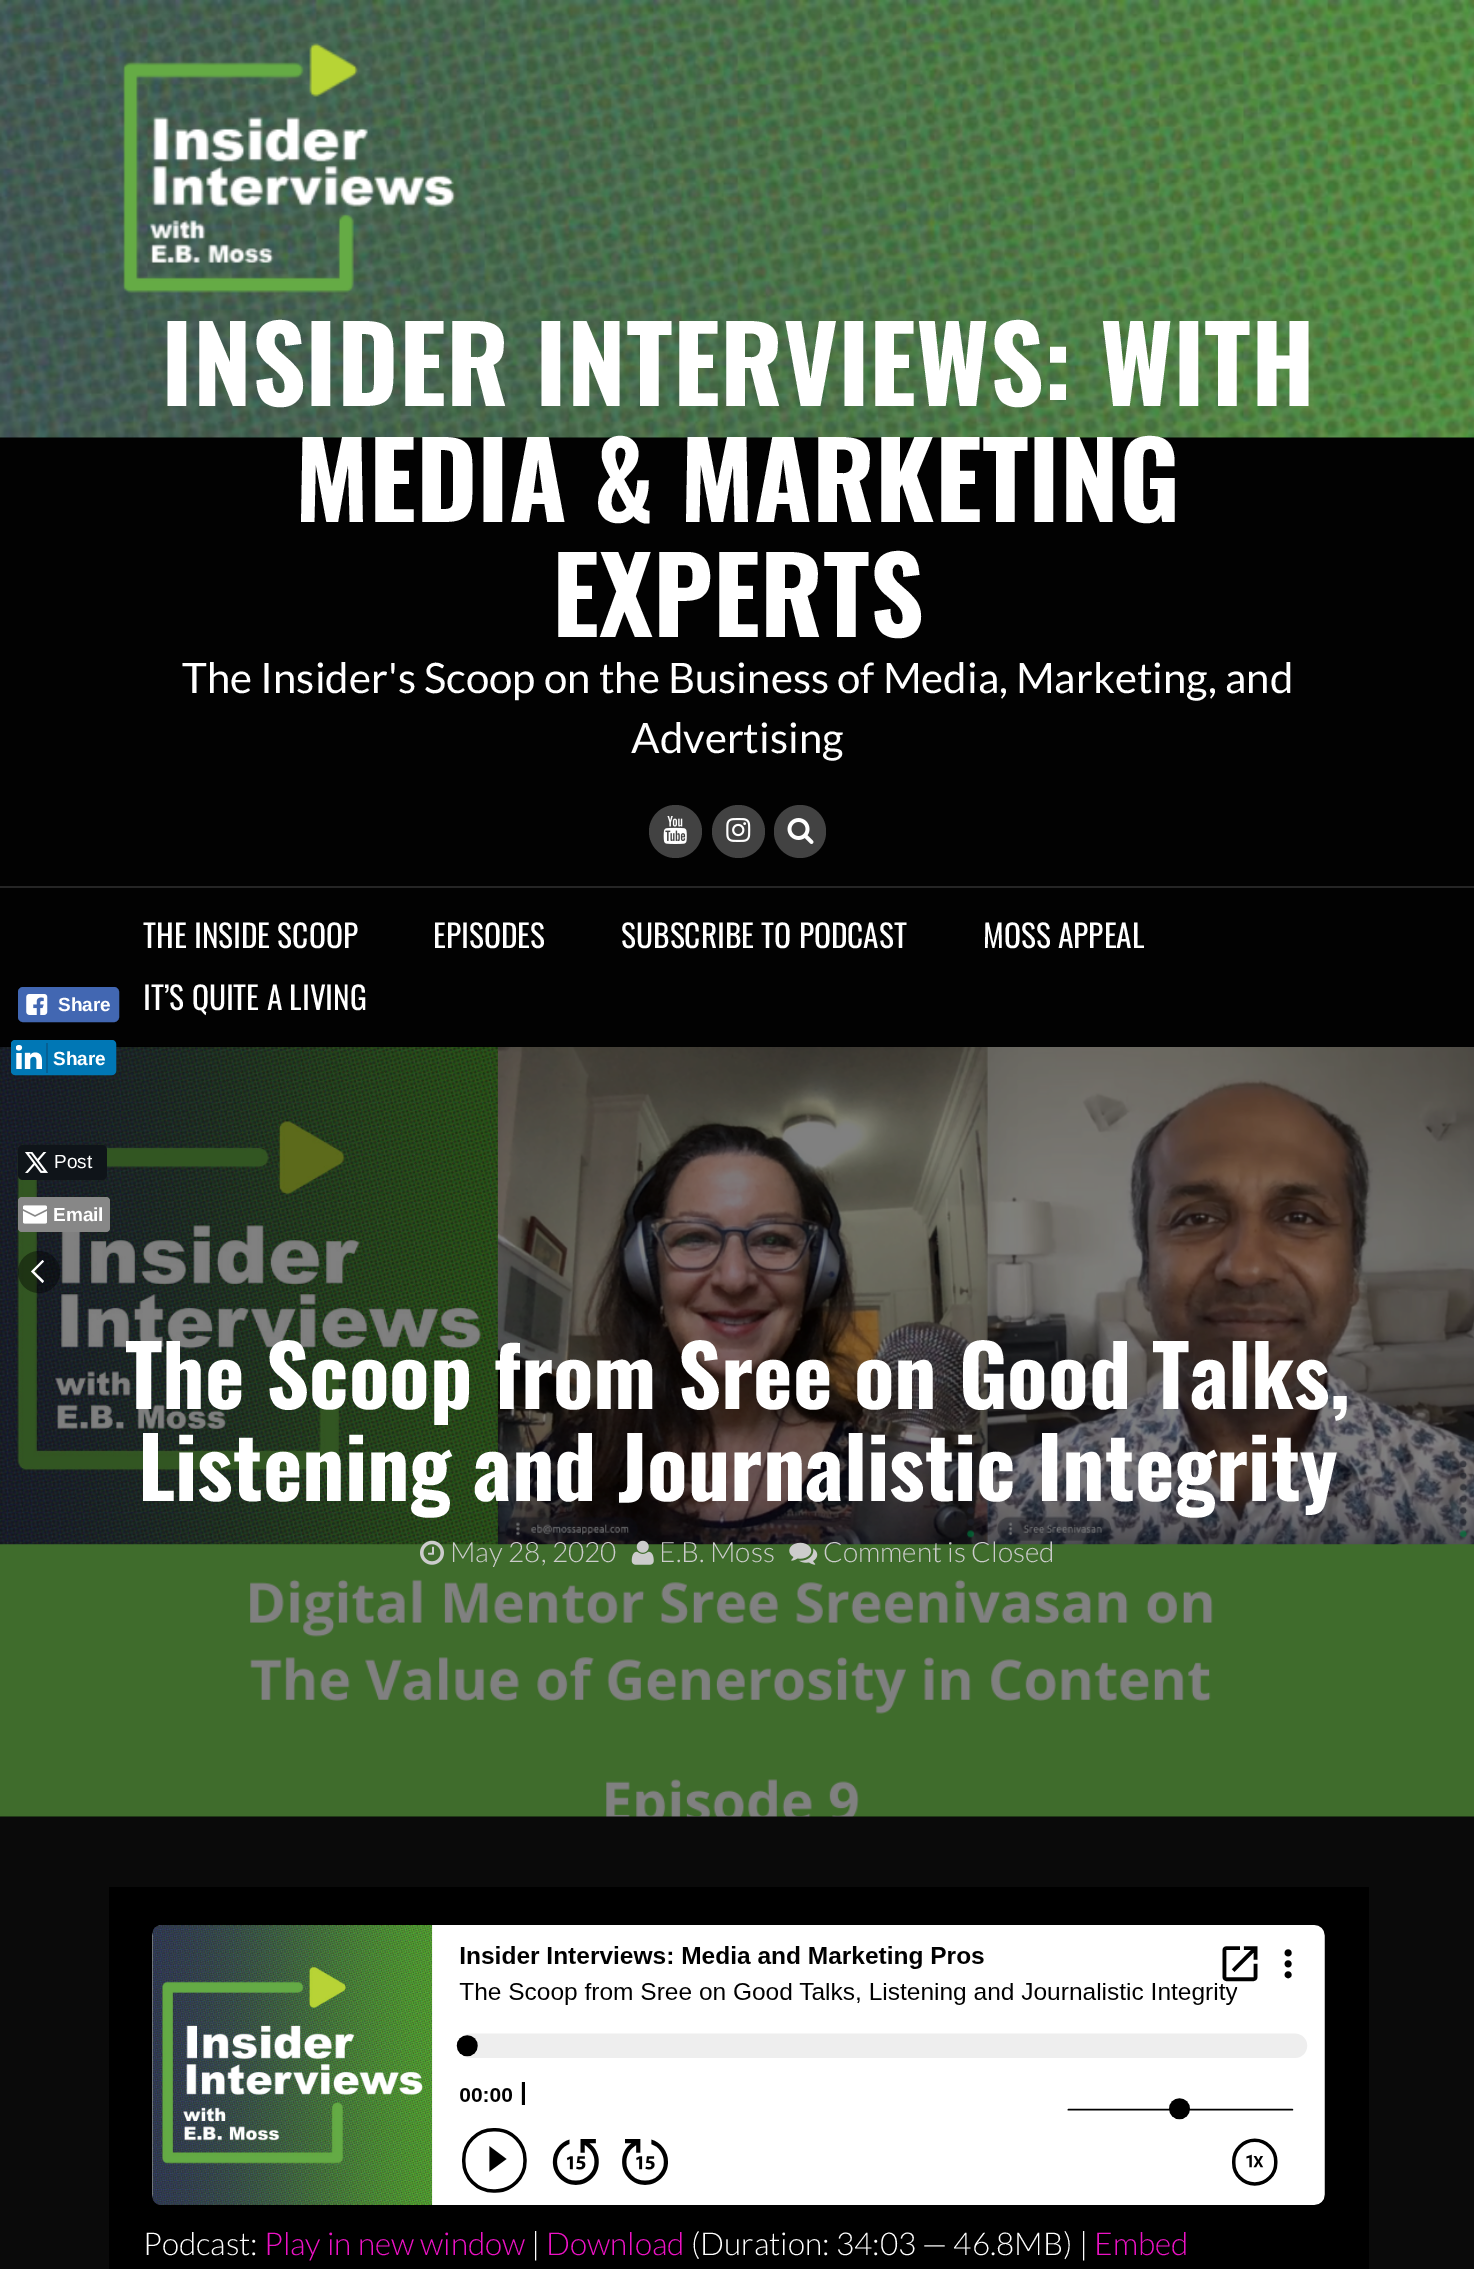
%!PS-Adobe-3.0
%%BoundingBox: 0 0 1474 2269
%%LanguageLevel: 3
%%Pages: 1
%%EndComments
%%BeginProlog
/setink { 3 { 255 div 3 1 roll } repeat setrgbcolor } def
/usefont { [ exch dup neg 0 0 3 -1 roll 0 0 ] selectfont } def
/drawtext { setink usefont moveto show } def
/fillbox { setink rectfill } def
/setalpha { dup .setfillconstantalpha .setstrokeconstantalpha } def
/disc { newpath 0 360 arc closepath } def
/rrect { 5 dict begin { /r /h /w /y /x } { exch def } forall
  x r add y moveto x w add y 2 copy h add r arct x w add y h add x 1 index r arct
  x y h add x y r arct x y 2 copy exch w add exch r arct closepath end } def
/drawimage { 5 dict begin { /h /w /y /x /name } { exch def } forall
  gsave x y translate w h scale
  w h 8 [w 0 0 h 0 0] name (r) file false 3 colorimage grestore end } def
%%EndProlog
%%BeginSetup
<< /PageSize [1474 2269] /PageUsesTransparency true >> setpagedevice
%%EndSetup
%%Page: 1 1
0 .pushpdf14devicefilter
0 2269 translate 1 -1 scale
4 setmiterlimit
0 0 1474 2269 10 10 10 fillbox
0 1816 1474 1 5 5 5 fillbox
(assets/img10.rgb) 0 1046 1474 771 drawimage
0.8 setalpha
0 437 1474 610 0 0 0 fillbox
1 setalpha
66 103 178 setink
19 988 99 33 4 rrect gsave fill grestore
2 setlinewidth
stroke
(assets/img1.rgb) 26 994 22 21 drawimage
(Share) 58 1011 /LiberationSans-Bold 19 255 255 255 drawtext
0.8 setalpha
0 1046 1474 1 0 0 0 fillbox
1 setalpha
0 119 181 setink
12 1041 103 33 3 rrect gsave fill grestore
stroke
46 1043 2 30 6 96 148 fillbox
(assets/img2.rgb) 16 1045 26 24 drawimage
(Share) 53 1065 /LiberationSans-Bold 19 255 255 255 drawtext
15 20 25 setink
18 1145 89 35 5 rrect fill
(assets/img3.rgb) 25 1152 23 21 drawimage
(Post) 54 1168 /LiberationSans-Regular 19 255 255 255 drawtext
135 135 135 setink
18 1197 92 35 4 rrect fill
(assets/img4.rgb) 23 1205 24 19 drawimage
(Email) 53 1221 /LiberationSans-Bold 19 255 255 255 drawtext
0.4 setalpha
0 0 0 setink
39 1272 21 disc fill
1 setalpha
255 255 255 setink
44 1261.5 moveto 42.5 1260 lineto 31 1271.5 lineto 42.5 1283 lineto 44 1281 lineto 34 1271.5 lineto fill
0 886 1474 2 37 37 37 fillbox
(assets/img5.rgb) 0 0 1474 438 drawimage
(assets/img6.rgb) 123 43 333 250 drawimage
(INSIDER INTERVIEWS: WITH) 161 406 /Oswald-Bold 105 255 255 255 drawtext
(MEDIA & MARKETING) 295 522 /Oswald-Bold 105 255 255 255 drawtext
(EXPERTS) 552 637 /Oswald-Bold 105 255 255 255 drawtext
(The Insider's Scoop on the Business of Media, Marketing, and) 182 693 /Lato-Regular 42 255 255 255 drawtext
(Advertising) 631 753 /Lato-Regular 42 255 255 255 drawtext
66 66 66 setink
675.5 831.5 26.5 disc fill
(assets/img7.rgb) 663 816 24 28 drawimage
738.5 831.5 26.5 disc fill
(assets/img8.rgb) 726 818 25 24 drawimage
774 805 52 53 26 rrect fill
(assets/img9.rgb) 787 818 27 26 drawimage
(THE INSIDE SCOOP) 143 948 /Oswald-Regular 31.5 255 255 255 drawtext
(EPISODES) 433 948 /Oswald-Regular 31.5 255 255 255 drawtext
(SUBSCRIBE TO PODCAST) 621 948 /Oswald-Regular 31.5 255 255 255 drawtext
(MOSS APPEAL) 983 948 /Oswald-Regular 31.5 255 255 255 drawtext
(IT’S QUITE A LIVING) 143 1010 /Oswald-Regular 31.5 255 255 255 drawtext
(The Scoop from Sree on Good Talks,) 125 1409 /Oswald-Bold 84 255 255 255 drawtext
(Listening and Journalistic Integrity) 138 1501 /Oswald-Bold 84 255 255 255 drawtext
(assets/img11.rgb) 420 1540 24 25 drawimage
(May 28, 2020) 450 1562 /Lato-Light 28 204 204 204 drawtext
(assets/img12.rgb) 631 1540 23 25 drawimage
(E.B. Moss) 659 1562 /Lato-Light 28 204 204 204 drawtext
(assets/img13.rgb) 789 1542 29 23 drawimage
(Comment is Closed) 823 1562 /Lato-Light 28 204 204 204 drawtext
109 1887 1260 382 0 0 0 fillbox
(assets/img14.rgb) 152 1925 1173 280 drawimage
(Podcast:) 143 2255 /Lato-Light 31.5 255 255 255 drawtext
(Play in new window) 264 2255 /Lato-Light 31.5 237 18 197 drawtext
(|) 531 2255 /Lato-Light 31.5 255 255 255 drawtext
(Download) 546 2255 /Lato-Light 31.5 237 18 197 drawtext
(\(Duration: 34:03 — 46.8MB\) |) 691 2255 /Lato-Light 31.5 255 255 255 drawtext
(Embed) 1094 2255 /Lato-Light 31.5 237 18 197 drawtext
.poppdf14devicefilter showpage
%%EOF
